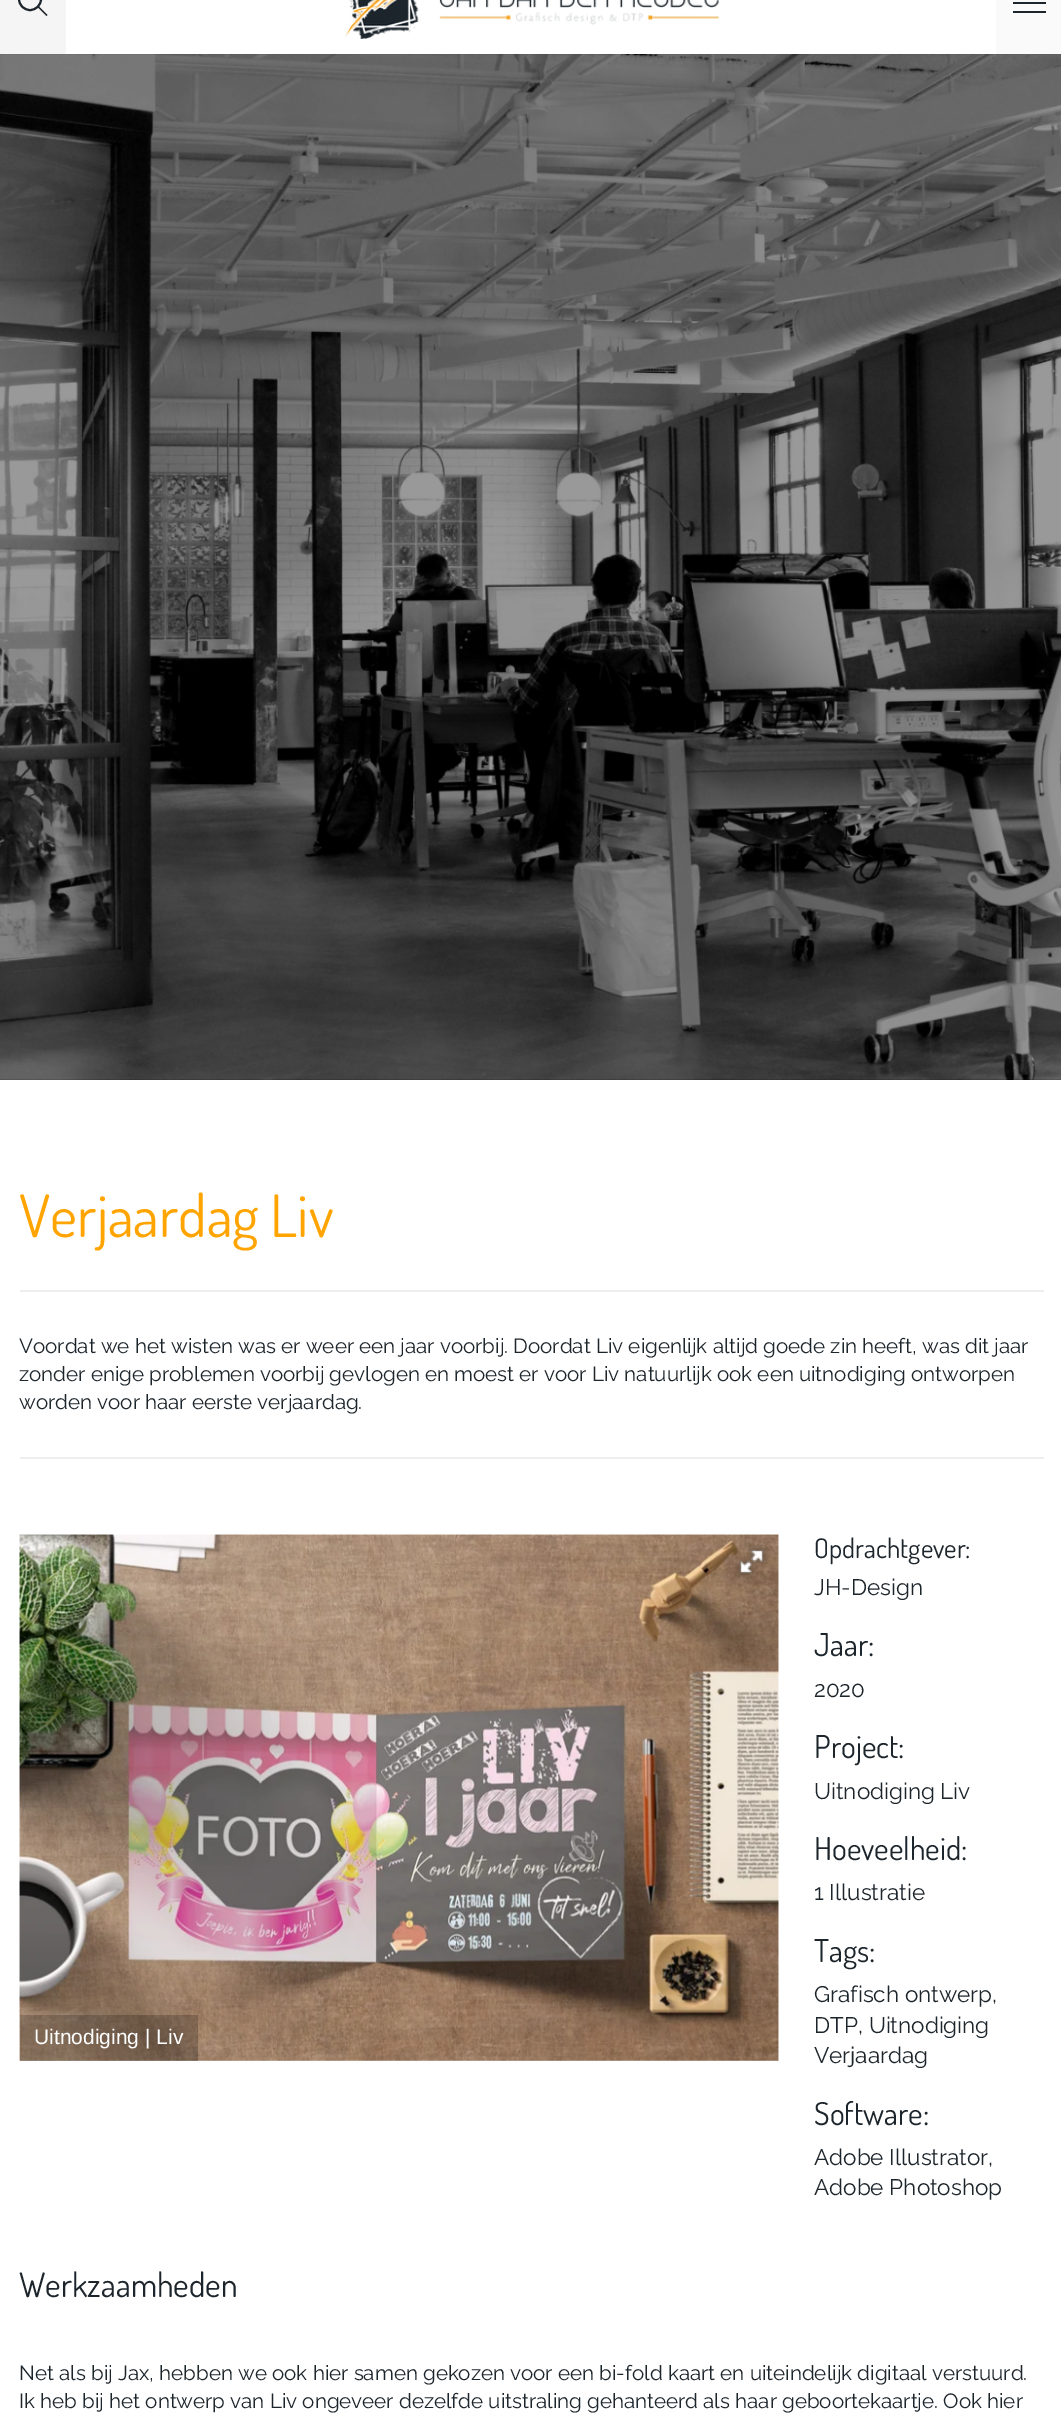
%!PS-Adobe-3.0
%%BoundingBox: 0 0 1061 2430
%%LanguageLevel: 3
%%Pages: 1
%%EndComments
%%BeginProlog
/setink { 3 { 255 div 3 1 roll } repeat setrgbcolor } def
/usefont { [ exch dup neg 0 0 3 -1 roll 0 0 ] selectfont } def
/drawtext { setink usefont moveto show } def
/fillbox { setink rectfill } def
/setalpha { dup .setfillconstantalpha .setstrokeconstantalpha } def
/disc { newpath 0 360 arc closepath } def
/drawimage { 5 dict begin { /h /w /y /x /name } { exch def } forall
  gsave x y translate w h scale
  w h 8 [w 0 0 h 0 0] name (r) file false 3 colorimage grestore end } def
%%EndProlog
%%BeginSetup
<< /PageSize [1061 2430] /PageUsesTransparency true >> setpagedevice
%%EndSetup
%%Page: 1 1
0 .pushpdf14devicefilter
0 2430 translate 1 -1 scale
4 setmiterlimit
0 0 1061 2430 255 255 255 fillbox
0 0 66 54 245 245 245 fillbox
29 37 44 setink
2 setlinewidth
30 -1 11 disc stroke
38 5.5 moveto 47.5 15 lineto 46.5 16 lineto 37 6.5 lineto closepath fill
(assets/img1.rgb) 345 0 374 39 drawimage
996 0 65 54 250 250 250 fillbox
1013 2 33 2 29 37 44 fillbox
1013 11 33 2 29 37 44 fillbox
(assets/img2.rgb) 0 54 1061 1026 drawimage
(Verjaardag Liv) 19 1237 /Dosis-Regular 58.5 255 164 0 drawtext
20 1290 1024 2 237 238 238 fillbox
(Voordat we het wisten was er weer een jaar voorbij. Doordat Liv eigenlijk altijd goede zin heeft, was dit jaar) 19 1353 /Raleway-Regular 20.55 29 37 44 drawtext
(zonder enige problemen voorbij gevlogen en moest er voor Liv natuurlijk ook een uitnodiging ontworpen) 19 1381 /Raleway-Regular 20.55 29 37 44 drawtext
(worden voor haar eerste verjaardag.) 19 1409 /Raleway-Regular 20.55 29 37 44 drawtext
20 1457 1024 2 237 238 238 fillbox
(assets/img4.rgb) 19 1534 760 527 drawimage
(assets/img3.rgb) 735 1545 33 33 drawimage
0.2 setalpha
20 2015 178 46 0 0 0 fillbox
1 setalpha
(Uitnodiging | Liv) 34 2044 /LiberationSans-Regular 21 255 255 255 drawtext
(Opdrachtgever:) 814 1558 /Dosis-Regular 27 29 37 44 drawtext
(JH-Design) 814 1595 /Raleway-Regular 22.5 29 37 44 drawtext
(Jaar:) 814 1656 /Dosis-Regular 31.5 29 37 44 drawtext
(2020) 814 1697 /Raleway-Regular 22.5 29 37 44 drawtext
(Project:) 814 1758 /Dosis-Regular 31.5 29 37 44 drawtext
(Uitnodiging Liv) 814 1799 /Raleway-Regular 22.5 29 37 44 drawtext
(Hoeveelheid:) 814 1860 /Dosis-Regular 31.5 29 37 44 drawtext
(1 Illustratie) 814 1900 /Raleway-Regular 22.5 29 37 44 drawtext
(Tags:) 814 1962 /Dosis-Regular 31.5 29 37 44 drawtext
(Grafisch ontwerp,) 814 2002 /Raleway-Regular 22.5 29 37 44 drawtext
(DTP, Uitnodiging) 814 2033 /Raleway-Regular 22.5 29 37 44 drawtext
(Verjaardag) 814 2063 /Raleway-Regular 22.5 29 37 44 drawtext
(Software:) 814 2125 /Dosis-Regular 31.5 29 37 44 drawtext
(Adobe Illustrator,) 814 2165 /Raleway-Regular 22.5 29 37 44 drawtext
(Adobe Photoshop) 814 2195 /Raleway-Regular 22.5 29 37 44 drawtext
(Werkzaamheden) 19 2297 /Dosis-Regular 33.75 29 37 44 drawtext
(Net als bij Jax, hebben we ook hier samen gekozen voor een bi-fold kaart en uiteindelijk digitaal verstuurd.) 19 2380 /Raleway-Regular 20.55 29 37 44 drawtext
(Ik heb bij het ontwerp van Liv ongeveer dezelfde uitstraling gehanteerd als haar geboortekaartje. Ook hier) 19 2408 /Raleway-Regular 20.55 29 37 44 drawtext
.poppdf14devicefilter showpage
%%EOF
